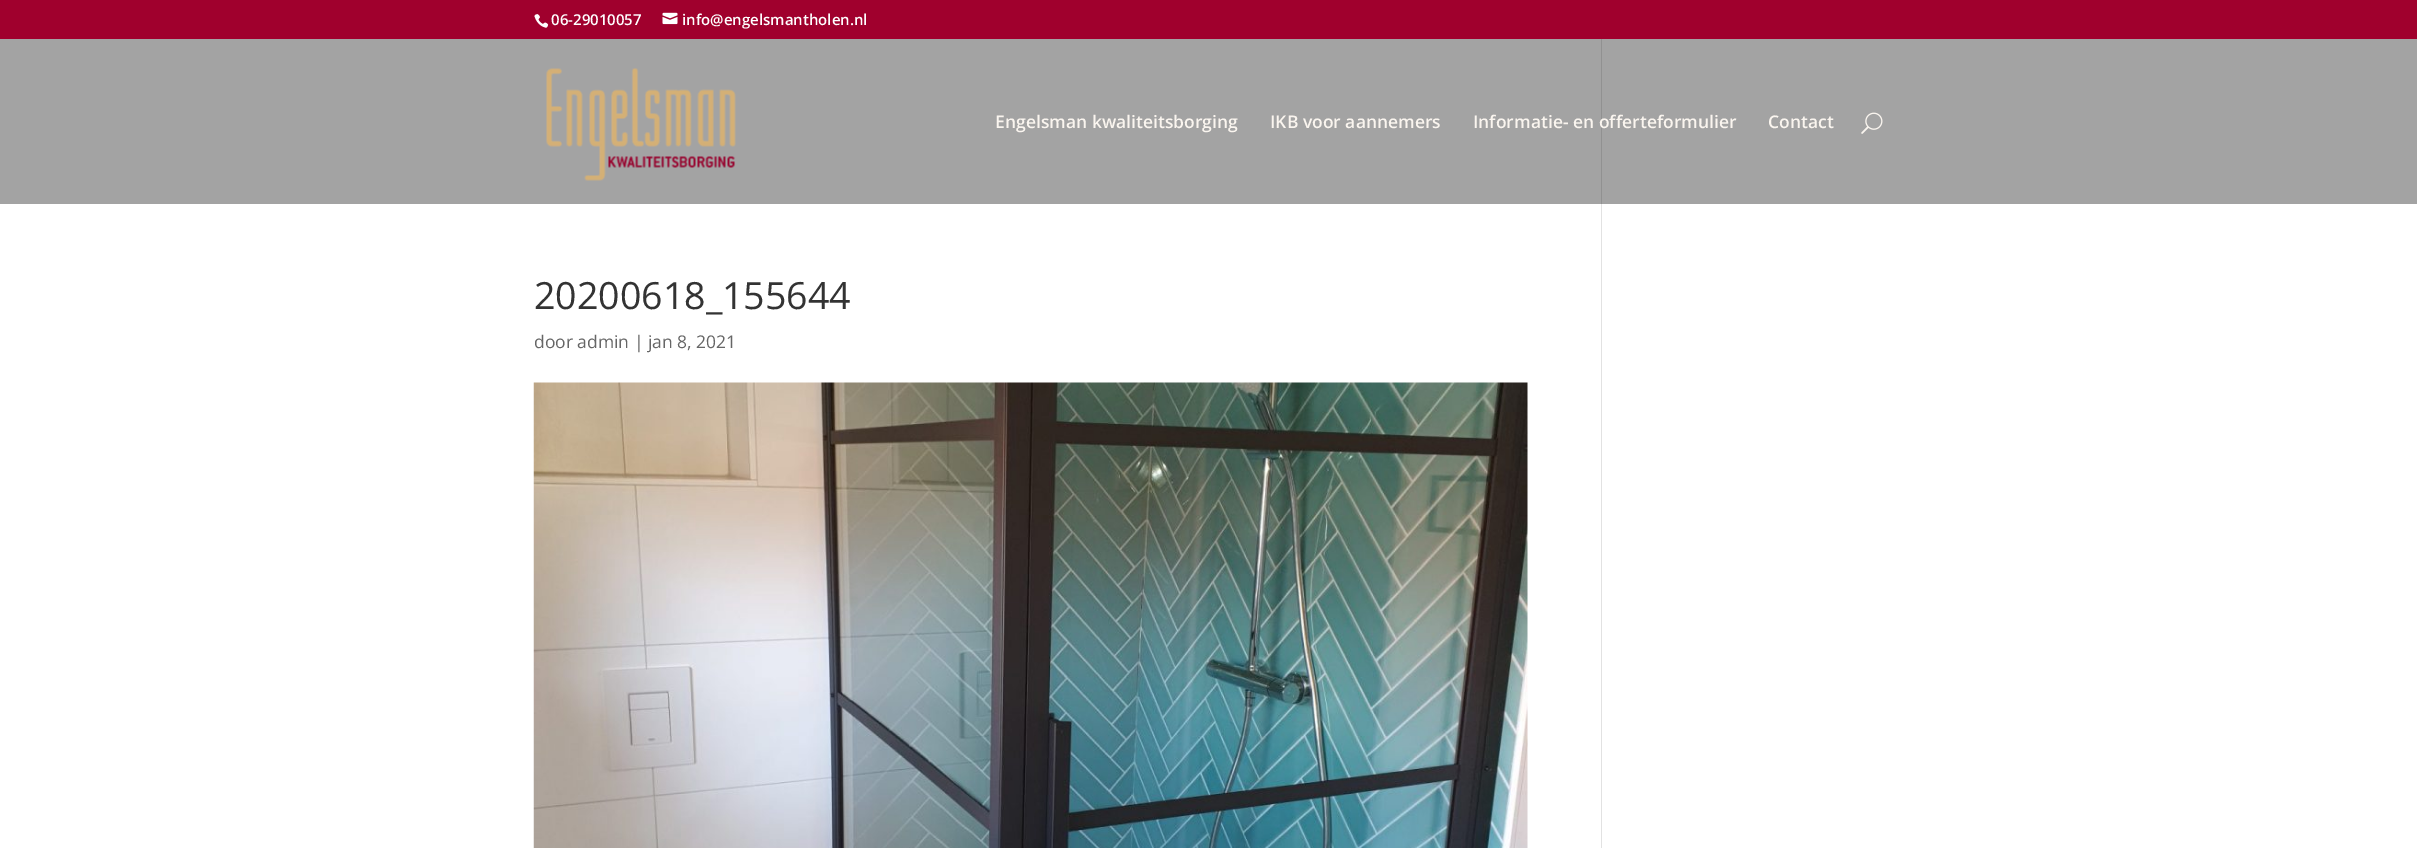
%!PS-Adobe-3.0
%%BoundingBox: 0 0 2417 848
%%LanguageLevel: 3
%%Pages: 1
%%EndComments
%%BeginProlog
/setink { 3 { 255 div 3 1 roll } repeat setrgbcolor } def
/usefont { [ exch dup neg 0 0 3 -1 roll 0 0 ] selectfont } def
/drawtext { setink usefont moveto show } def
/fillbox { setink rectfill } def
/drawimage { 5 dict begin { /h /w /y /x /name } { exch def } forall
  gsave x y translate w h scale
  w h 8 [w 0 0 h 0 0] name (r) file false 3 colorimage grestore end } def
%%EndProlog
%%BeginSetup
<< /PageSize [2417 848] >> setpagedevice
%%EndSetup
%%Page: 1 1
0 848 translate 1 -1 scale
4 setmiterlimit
0 0 2417 848 255 255 255 fillbox
0 0 2417 39 160 0 45 fillbox
(assets/img1.rgb) 534 14 15 14 drawimage
(06-29010057) 551 25 /OpenSans-SemiBold 15 255 255 255 drawtext
(assets/img2.rgb) 662 12 16 13 drawimage
(info@engelsmantholen.nl) 682 25 /OpenSans-SemiBold 15 255 255 255 drawtext
0 39 2417 165 163 163 163 fillbox
(assets/img3.rgb) 546 68 190 113 drawimage
(Engelsman kwaliteitsborging) 995 128 /OpenSans-SemiBold 17.5 250 245 239 drawtext
(IKB voor aannemers) 1270 128 /OpenSans-SemiBold 17.5 250 245 239 drawtext
1601 39 1 165 145 145 145 fillbox
(Informatie- en offerteformulier) 1473 128 /OpenSans-SemiBold 17.5 250 245 239 drawtext
(Contact) 1768 128 /OpenSans-SemiBold 17.5 250 245 239 drawtext
(assets/img4.rgb) 1861 112 22 22 drawimage
(20200618_155644) 534 309 /OpenSans-Regular 37.5 51 51 51 drawtext
(door admin | jan 8, 2021) 534 348 /OpenSans-Regular 17.5 102 102 102 drawtext
(assets/img5.rgb) 533 382 995 466 drawimage
1601 204 1 644 226 226 226 fillbox
showpage
%%EOF
